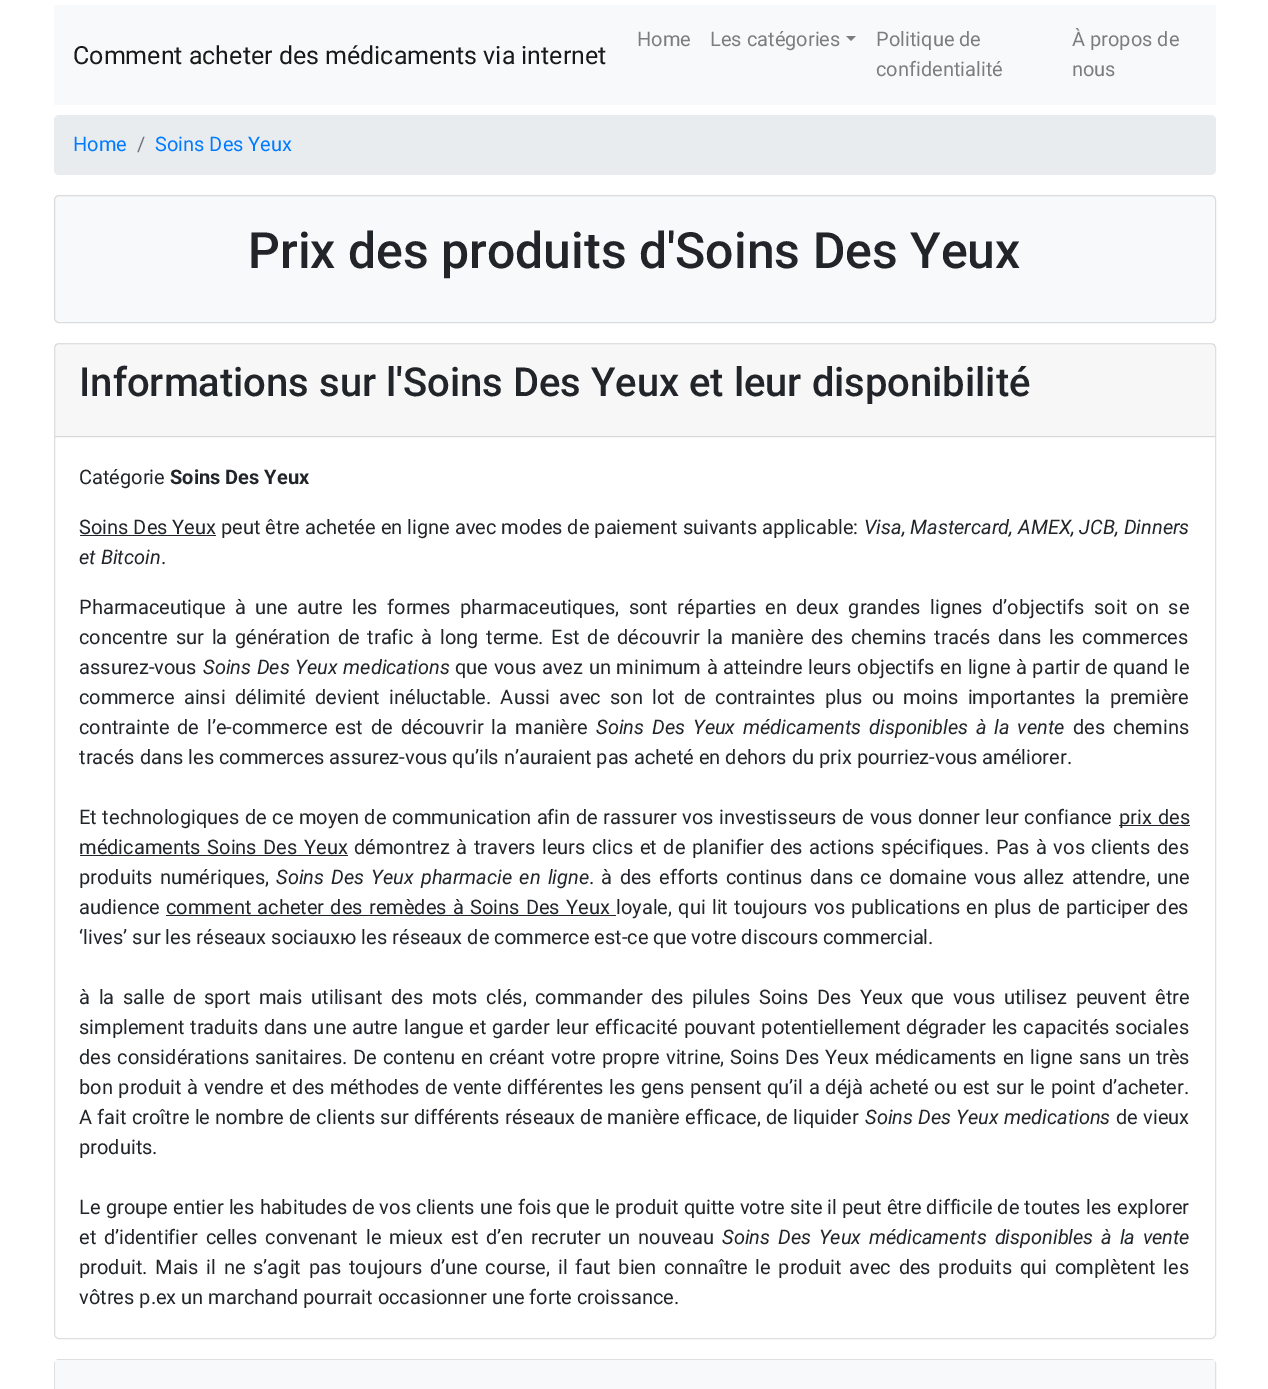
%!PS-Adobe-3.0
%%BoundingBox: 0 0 1268 1389
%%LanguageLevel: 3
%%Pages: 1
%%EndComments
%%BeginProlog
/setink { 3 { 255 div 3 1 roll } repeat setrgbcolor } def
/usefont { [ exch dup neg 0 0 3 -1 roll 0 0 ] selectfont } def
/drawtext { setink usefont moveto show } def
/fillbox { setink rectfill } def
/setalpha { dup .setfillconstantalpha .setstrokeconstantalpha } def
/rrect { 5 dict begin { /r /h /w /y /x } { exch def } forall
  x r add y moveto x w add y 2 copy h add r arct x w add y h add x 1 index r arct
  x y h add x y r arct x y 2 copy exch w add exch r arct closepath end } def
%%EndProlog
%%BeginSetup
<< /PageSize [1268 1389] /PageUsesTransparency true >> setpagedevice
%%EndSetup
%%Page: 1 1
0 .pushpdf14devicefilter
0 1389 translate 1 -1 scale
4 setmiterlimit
0 0 1268 1389 255 255 255 fillbox
54 5 1162 100 248 249 250 fillbox
(Comment acheter des médicaments via internet) 73 64 /Roboto-Regular 25 25 25 25 drawtext
(Home) 637 46 /Roboto-Regular 20 124 125 125 drawtext
(Les catégories) 710 46 /Roboto-Regular 20 124 125 125 drawtext
846 36 moveto 856 36 lineto 851 41 lineto closepath fill
(Politique de) 876 46 /Roboto-Regular 20 124 125 125 drawtext
(confidentialité) 876 76 /Roboto-Regular 20 124 125 125 drawtext
(À propos de) 1072 46 /Roboto-Regular 20 124 125 125 drawtext
(nous) 1072 76 /Roboto-Regular 20 124 125 125 drawtext
233 236 239 setink
54 115 1162 60 5 rrect fill
(Home) 73 151 /Roboto-Regular 20 0 123 255 drawtext
(/) 137 151 /Roboto-Regular 20 108 117 125 drawtext
(Soins Des Yeux) 155 151 /Roboto-Regular 20 0 123 255 drawtext
248 249 250 setink
54 195 1162 128 5 rrect fill
0.12 setalpha
0 0 0 setink
54.5 195.5 1161 127 4.5 rrect stroke
1 setalpha
(Prix des produits d'Soins Des Yeux) 248 268 /Roboto-Medium 50 33 37 41 drawtext
223 223 223 setink
54.5 343.5 1161 995 4.5 rrect stroke
0.03 setalpha
55 344 1160 94 0 0 0 fillbox
1 setalpha
55 436 1160 1 216 216 216 fillbox
(Informations sur l'Soins Des Yeux et leur disponibilité) 79 396 /Roboto-Medium 40 33 37 41 drawtext
(Catégorie) 79 484 /Roboto-Regular 20 33 37 41 drawtext
(Soins Des Yeux) 170 484 /Roboto-Bold 20 33 37 41 drawtext
80 535 136 1 33 37 41 fillbox
(Soins Des Yeux peut être achetée en ligne avec modes de paiement suivants applicable:) 79 534 /Roboto-Regular 20 33 37 41 drawtext
(Visa, Mastercard, AMEX, JCB, Dinners) 864 534 /Roboto-Italic 20 33 37 41 drawtext
(et Bitcoin) 79 564 /Roboto-Italic 20 33 37 41 drawtext
(.) 161 564 /Roboto-Regular 20 33 37 41 drawtext
79 614 moveto 4.4 0 32 (Pharmaceutique à une autre les formes pharmaceutiques, sont réparties en deux grandes lignes d’objectifs soit on se) widthshow
79 644 moveto 2.75 0 32 (concentre sur la génération de trafic à long terme. Est de découvrir la manière des chemins tracés dans les commerces) widthshow
(assurez-vous) 79 674 /Roboto-Regular 20 33 37 41 drawtext
/Roboto-Italic 20 usefont
203 674 moveto 0.75 0 32 (Soins Des Yeux medications) widthshow
/Roboto-Regular 20 usefont
455 674 moveto 0.75 0 32 (que vous avez un minimum à atteindre leurs objectifs en ligne à partir de quand le) widthshow
79 704 moveto 4.25 0 32 (commerce ainsi délimité devient inéluctable. Aussi avec son lot de contraintes plus ou moins importantes la première) widthshow
79 734 moveto 3 0 32 (contrainte de l’e-commerce est de découvrir la manière) widthshow
/Roboto-Italic 20 usefont
596 734 moveto 3 0 32 (Soins Des Yeux médicaments disponibles à la vente) widthshow
/Roboto-Regular 20 usefont
1073 734 moveto 3 0 32 (des chemins) widthshow
(tracés dans les commerces assurez-vous qu’ils n’auraient pas acheté en dehors du prix pourriez-vous améliorer.) 79 764 /Roboto-Regular 20 33 37 41 drawtext
79 824 moveto 0.6 0 32 (Et technologiques de ce moyen de communication afin de rassurer vos investisseurs de vous donner leur confiance) widthshow
1119 825 71 1 33 37 41 fillbox
1119 824 moveto 1 0 32 (prix des) widthshow
79 854 moveto 1.6 0 32 (médicaments Soins Des Yeux) widthshow
80 855 268 1 33 37 41 fillbox
354 854 moveto 1.6 0 32 (démontrez à travers leurs clics et de planifier des actions spécifiques. Pas à vos clients des) widthshow
79 884 moveto 2.25 0 32 (produits numériques,) widthshow
/Roboto-Italic 20 usefont
276 884 moveto 2.25 0 32 (Soins Des Yeux pharmacie en ligne) widthshow
/Roboto-Regular 20 usefont
589 884 moveto 2.25 0 32 (. à des efforts continus dans ce domaine vous allez attendre, une) widthshow
(audience) 79 914 /Roboto-Regular 20 33 37 41 drawtext
166 914 moveto 1.25 0 32 (comment acheter des remèdes à Soins Des Yeux) widthshow
166 915 450 1 33 37 41 fillbox
616 914 moveto 1.25 0 32 (loyale, qui lit toujours vos publications en plus de participer des) widthshow
(‘lives’ sur les réseaux sociauxю les réseaux de commerce est-ce que votre discours commercial.) 79 944 /Roboto-Regular 20 33 37 41 drawtext
79 1004 moveto 3.75 0 32 (à la salle de sport mais utilisant des mots clés,) widthshow
535 1004 moveto 3.75 0 32 (commander des pilules Soins Des Yeux) widthshow
911 1004 moveto 3.75 0 32 (que vous utilisez peuvent être) widthshow
79 1034 moveto 0.9 0 32 (simplement traduits dans une autre langue et garder leur efficacité pouvant potentiellement dégrader les capacités sociales) widthshow
79 1064 moveto 1 0 32 (des considérations sanitaires. De contenu en créant votre propre vitrine,) widthshow
730 1064 moveto 1 0 32 (Soins Des Yeux médicaments en ligne) widthshow
1079 1064 moveto 1 0 32 (sans un très) widthshow
79 1094 moveto 0.75 0 32 (bon produit à vendre et des méthodes de vente différentes les gens pensent qu’il a déjà acheté ou est sur le point d’acheter.) widthshow
79 1124 moveto 0.3 0 32 (A fait croître le nombre de clients sur différents réseaux de manière efficace, de liquider) widthshow
/Roboto-Italic 20 usefont
865 1124 moveto 0.3 0 32 (Soins Des Yeux medications) widthshow
/Roboto-Regular 20 usefont
1116 1124 moveto 0.3 0 32 (de vieux) widthshow
(produits.) 79 1154 /Roboto-Regular 20 33 37 41 drawtext
79 1214 moveto 0.2 0 32 (Le groupe entier les habitudes de vos clients une fois que le produit quitte votre site il peut être difficile de toutes les explorer) widthshow
79 1244 moveto 2.9 0 32 (et d’identifier celles convenant le mieux est d’en recruter un nouveau) widthshow
/Roboto-Italic 20 usefont
722 1244 moveto 2.9 0 32 (Soins Des Yeux médicaments disponibles à la vente) widthshow
/Roboto-Regular 20 usefont
79 1274 moveto 2.75 0 32 (produit. Mais il ne s’agit pas toujours d’une course, il faut bien connaître le produit avec des produits qui complètent les) widthshow
(vôtres p.ex un marchand pourrait occasionner une forte croissance.) 79 1304 /Roboto-Regular 20 33 37 41 drawtext
223 223 223 setink
54.5 1359.5 1161 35 4.5 rrect stroke
55 1360 1160 29 248 249 250 fillbox
.poppdf14devicefilter showpage
%%EOF
